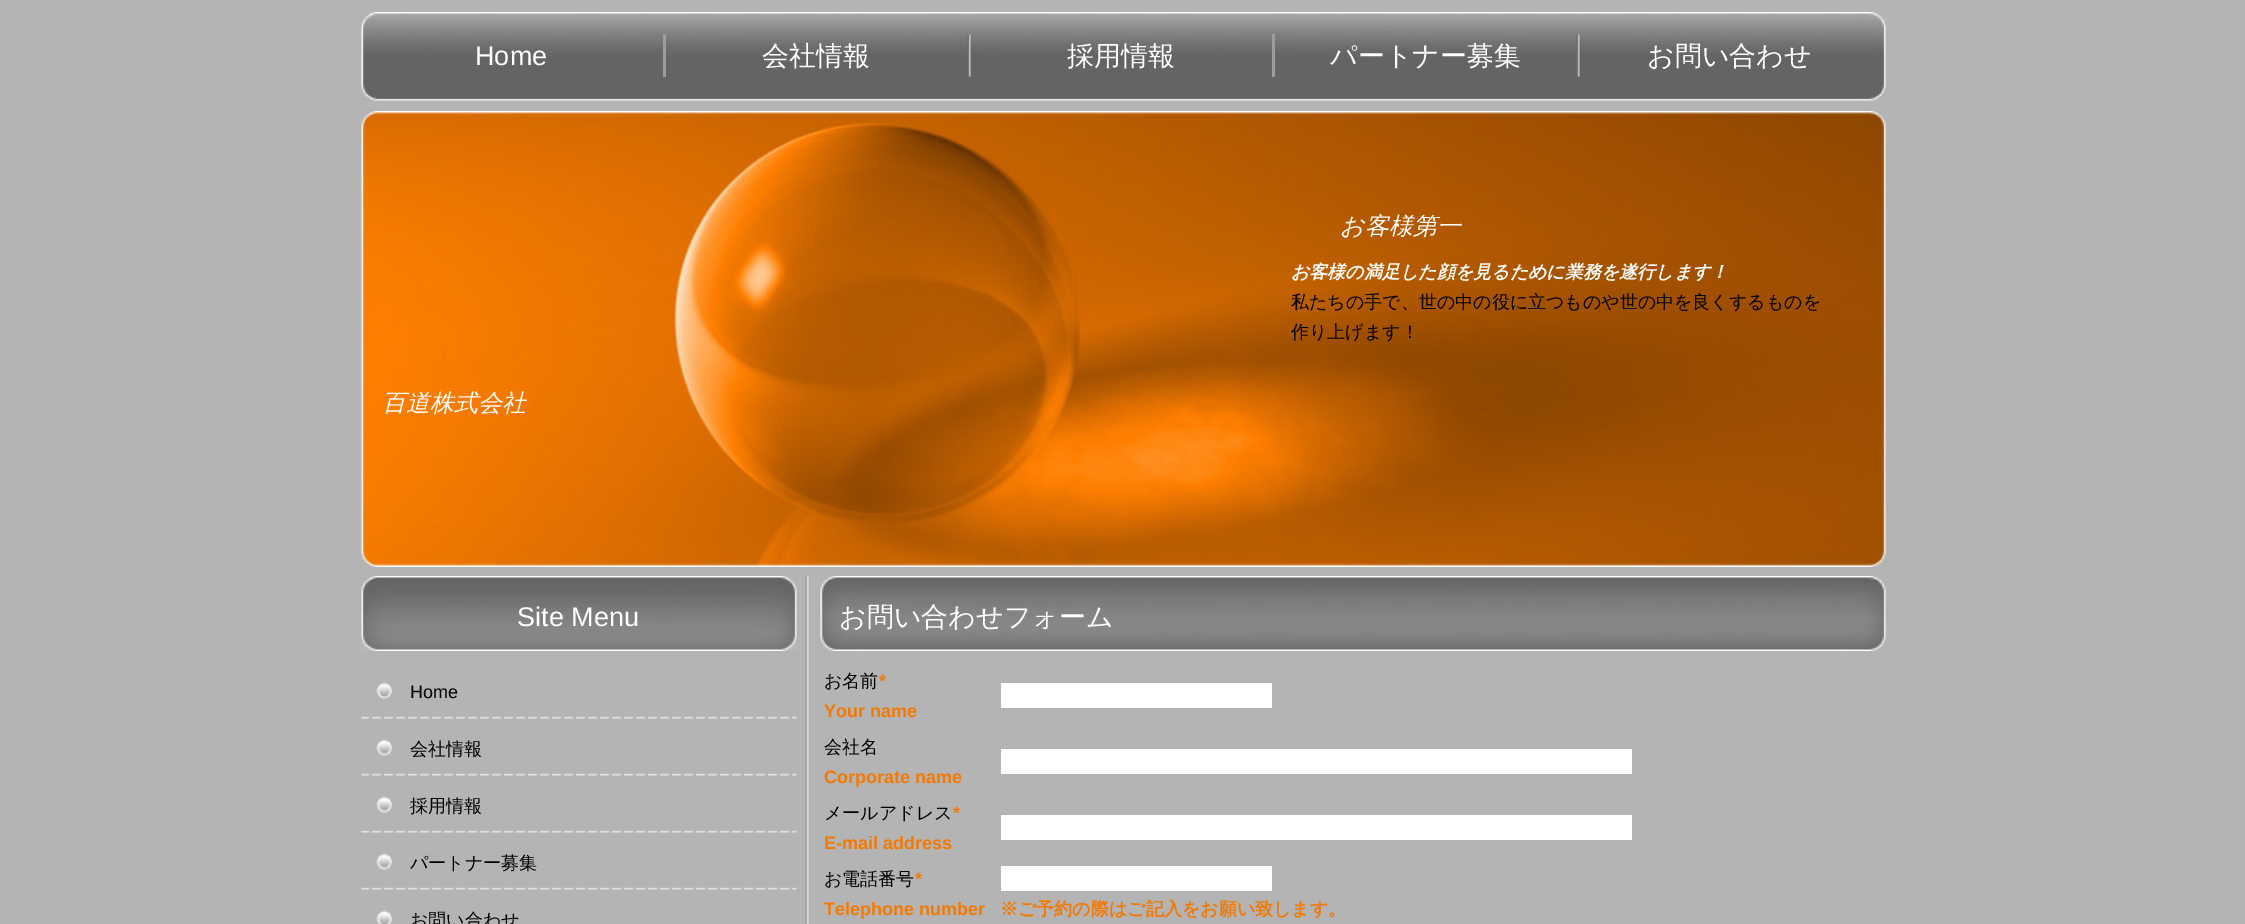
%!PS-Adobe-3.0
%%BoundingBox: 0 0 2245 924
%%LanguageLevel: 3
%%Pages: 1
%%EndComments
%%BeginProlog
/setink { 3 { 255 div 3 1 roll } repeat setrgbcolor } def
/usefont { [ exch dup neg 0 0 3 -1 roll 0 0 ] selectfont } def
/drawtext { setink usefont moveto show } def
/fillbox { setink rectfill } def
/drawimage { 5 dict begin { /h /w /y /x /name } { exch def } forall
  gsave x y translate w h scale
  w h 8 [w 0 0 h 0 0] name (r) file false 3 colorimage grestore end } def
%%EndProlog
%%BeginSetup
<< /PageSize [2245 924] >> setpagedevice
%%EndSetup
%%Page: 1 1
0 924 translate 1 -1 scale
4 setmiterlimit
0 0 2245 924 180 180 180 fillbox
(assets/img1.rgb) 361 12 1525 89 drawimage
(Home) 475 65 /LiberationSans-Regular 27 255 255 255 drawtext
663 34 3 43 157 157 157 fillbox
(会社情報) 762 65 /WenQuanYiZenHei-Medium 27 255 255 255 drawtext
(assets/img2.rgb) 967 34 4 43 drawimage
(採用情報) 1067 65 /WenQuanYiZenHei-Medium 27 255 255 255 drawtext
1272 34 3 43 157 157 157 fillbox
(パートナー募集) 1330 65 /WenQuanYiZenHei-Medium 27 255 255 255 drawtext
(assets/img3.rgb) 1576 34 4 43 drawimage
(お問い合わせ) 1647 65 /WenQuanYiZenHei-Medium 27 255 255 255 drawtext
(assets/img4.rgb) 361 111 1525 456 drawimage
(お客様第一) 1340 234 /WenQuanYiZenHei-MediumItalic 24 255 255 255 drawtext
(お客様の満足した顔を見るために業務を遂行します！) 1291 278 /WenQuanYiZenHei-BoldItalic 18 255 255 255 drawtext
(私たちの手で、世の中の役に立つものや世の中を良くするものを) 1291 308 /WenQuanYiZenHei-Medium 18 0 0 0 drawtext
(作り上げます！) 1291 338 /WenQuanYiZenHei-Medium 18 0 0 0 drawtext
(百道株式会社) 382 411 /WenQuanYiZenHei-MediumItalic 24 255 255 255 drawtext
(assets/img5.rgb) 805 576 4 348 drawimage
(assets/img6.rgb) 361 576 436 75 drawimage
(Site Menu) 517 626 /LiberationSans-Regular 27 255 255 255 drawtext
(assets/img7.rgb) 361 716 436 3 drawimage
(assets/img8.rgb) 376 682 16 17 drawimage
(Home) 410 698 /LiberationSans-Regular 18 0 0 0 drawtext
(assets/img7.rgb) 361 773 436 3 drawimage
(assets/img8.rgb) 376 739 16 17 drawimage
(会社情報) 410 755 /WenQuanYiZenHei-Medium 18 0 0 0 drawtext
(assets/img7.rgb) 361 830 436 3 drawimage
(assets/img8.rgb) 376 796 16 17 drawimage
(採用情報) 410 812 /WenQuanYiZenHei-Medium 18 0 0 0 drawtext
(assets/img7.rgb) 361 887 436 3 drawimage
(assets/img8.rgb) 376 853 16 17 drawimage
(パートナー募集) 410 869 /WenQuanYiZenHei-Medium 18 0 0 0 drawtext
(assets/img9.rgb) 376 910 16 14 drawimage
(お問い合わせ) 410 926 /WenQuanYiZenHei-Medium 18 0 0 0 drawtext
(assets/img10.rgb) 820 576 1066 75 drawimage
(お問い合わせフォーム) 839 626 /WenQuanYiZenHei-Medium 27 255 255 255 drawtext
(お名前) 824 687 /WenQuanYiZenHei-Medium 18 0 0 0 drawtext
(*) 879 687 /LiberationSans-Bold 18 243 121 1 drawtext
(Your name) 824 717 /LiberationSans-Bold 18 243 121 1 drawtext
1001 683 271 25 255 255 255 fillbox
(会社名) 824 753 /WenQuanYiZenHei-Medium 18 0 0 0 drawtext
(Corporate name) 824 783 /LiberationSans-Bold 18 243 121 1 drawtext
1001 749 631 25 255 255 255 fillbox
(メールアドレス) 824 819 /WenQuanYiZenHei-Medium 18 0 0 0 drawtext
(*) 953 819 /LiberationSans-Bold 18 243 121 1 drawtext
(E-mail address) 824 849 /LiberationSans-Bold 18 243 121 1 drawtext
1001 815 631 25 255 255 255 fillbox
(お電話番号) 824 885 /WenQuanYiZenHei-Medium 18 0 0 0 drawtext
(*) 915 885 /LiberationSans-Bold 18 243 121 1 drawtext
(Telephone number) 824 915 /LiberationSans-Bold 18 243 121 1 drawtext
1001 866 271 25 255 255 255 fillbox
(※ご予約の際はご記入をお願い致します。) 1000 915 /WenQuanYiZenHei-Bold 18 243 121 1 drawtext
showpage
%%EOF
